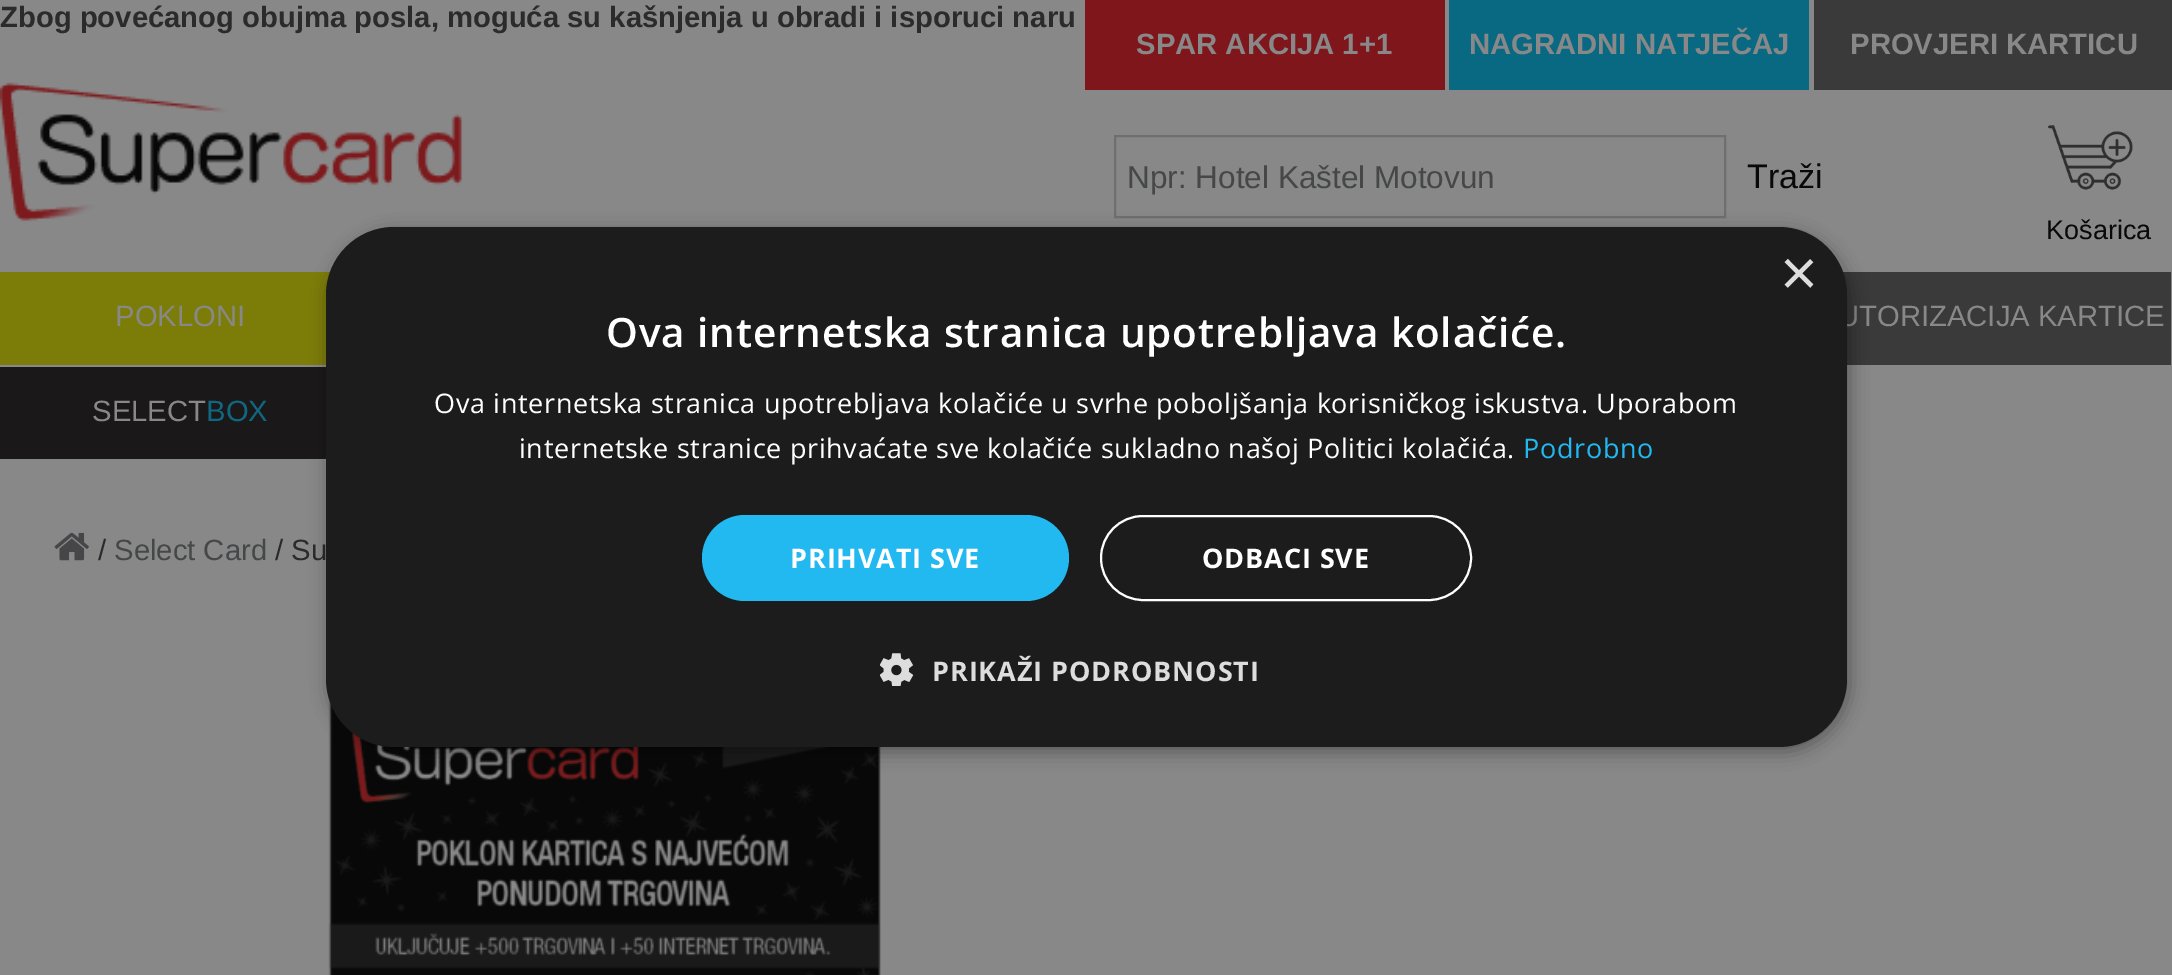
%!PS-Adobe-3.0
%%BoundingBox: 0 0 2172 975
%%LanguageLevel: 3
%%Pages: 1
%%EndComments
%%BeginProlog
/setink { 3 { 255 div 3 1 roll } repeat setrgbcolor } def
/usefont { [ exch dup neg 0 0 3 -1 roll 0 0 ] selectfont } def
/drawtext { setink usefont moveto show } def
/fillbox { setink rectfill } def
/setalpha { dup .setfillconstantalpha .setstrokeconstantalpha } def
/rrect { 5 dict begin { /r /h /w /y /x } { exch def } forall
  x r add y moveto x w add y 2 copy h add r arct x w add y h add x 1 index r arct
  x y h add x y r arct x y 2 copy exch w add exch r arct closepath end } def
/softshadow { 12 dict begin { /a /b /q /h /w /y /x } { exch def } forall gsave /was 0 def
  9 -2 -9 { dup b mul 4 div /e exch def 1 sub .425 mul 2.718 exch exp 1 add a .99 .min exch div /now exch def
    1 1 now sub 1 was sub div sub setalpha /was now def
    w h .min e 2 mul add 0 gt { x e sub y e sub w e 2 mul add h e 2 mul add
      q e add b .6 mul add w h .min 2 div e add .min 0 .max rrect fill } if } for grestore end } def
/drawimage { 5 dict begin { /h /w /y /x /name } { exch def } forall
  gsave x y translate w h scale
  w h 8 [w 0 0 h 0 0] name (r) file false 3 colorimage grestore end } def
%%EndProlog
%%BeginSetup
<< /PageSize [2172 975] /PageUsesTransparency true >> setpagedevice
%%EndSetup
%%Page: 1 1
0 .pushpdf14devicefilter
0 975 translate 1 -1 scale
4 setmiterlimit
0 0 2172 975 136 136 136 fillbox
(Zbog povećanog obujma posla, moguća su kašnjenja u obradi i isporuci naru) 0 27 /LiberationSans-Bold 29.25 43 43 43 drawtext
1085 0 360 90 127 22 27 fillbox
(SPAR AKCIJA 1+1) 1136 54 /LiberationSans-Bold 29.25 136 136 136 drawtext
1449 0 360 90 9 105 130 fillbox
(NAGRADNI NATJEČAJ) 1469 54 /LiberationSans-Bold 29.25 136 136 136 drawtext
1814 0 358 90 58 58 58 fillbox
(PROVJERI KARTICU) 1850 54 /LiberationSans-Bold 29.25 136 136 136 drawtext
(assets/img1.rgb) 0 82 462 140 drawimage
111 111 111 setink
2 setlinewidth
1115 136 610 81 rectstroke
(Npr: Hotel Kaštel Motovun) 1127 188 /LiberationSans-Regular 31.5 70 71 72 drawtext
(Traži) 1747 188 /LiberationSans-Regular 34 9 9 9 drawtext
(assets/img2.rgb) 2048 125 85 65 drawimage
(Košаrica) 2046 239 /LiberationSans-Regular 27 9 9 9 drawtext
0 272 330 93 124 124 9 fillbox
(POKLONI) 115 326 /LiberationSans-Regular 29.25 136 136 136 drawtext
1843 272 328 93 58 58 58 fillbox
(UTORIZACIJA KARTICE) 1838 326 /LiberationSans-Regular 29.25 136 136 136 drawtext
0 367 326 92 26 24 25 fillbox
(SELECT) 92 421 /LiberationSans-Regular 29.25 136 136 136 drawtext
(BOX) 206 421 /LiberationSans-Regular 29.25 16 103 128 drawtext
(assets/img3.rgb) 54 532 35 29 drawimage
(/) 98 560 /LiberationSans-Regular 29.25 43 43 43 drawtext
(Select Card) 114 560 /LiberationSans-Regular 29.25 70 71 72 drawtext
(/ Su) 275 560 /LiberationSans-Regular 29.25 43 43 43 drawtext
(assets/img4.rgb) 328 695 553 280 drawimage
0 0 0 setink
329 232 1521 520 68 9 0.35 softshadow
28 28 28 setink
326 227 1521 520 68 rrect fill
(×) 1780 295 /LiberationSans-Regular 65 221 221 221 drawtext
/OpenSans-SemiBold 40.5 usefont
255 255 255 setink
606 347 moveto 0.9 0 (Ova internetska stranica upotrebljava kolačiće.) ashow
/OpenSans-Regular 27 usefont
434 413 moveto 0.67 0 (Ova internetska stranica upotrebljava kolačiće u svrhe poboljšanja korisničkog iskustva. Uporabom) ashow
519 458 moveto 0.67 0 (internetske stranice prihvaćate sve kolačiće sukladno našoj Politici kolačića.) ashow
34 184 240 setink
1523 458 moveto 0.67 0 (Podrobno) ashow
702 515 367 86 43 rrect fill
/OpenSans-Bold 27 usefont
255 255 255 setink
790 568 moveto 0.9 0 (PRIHVATI SVE) ashow
1101 516 370 84 42 rrect stroke
1202 568 moveto 0.9 0 (ODBACI SVE) ashow
(assets/img5.rgb) 880 653 34 33 drawimage
221 221 221 setink
932 681 moveto 0.9 0 (PRIKAŽI PODROBNOSTI) ashow
.poppdf14devicefilter showpage
%%EOF
